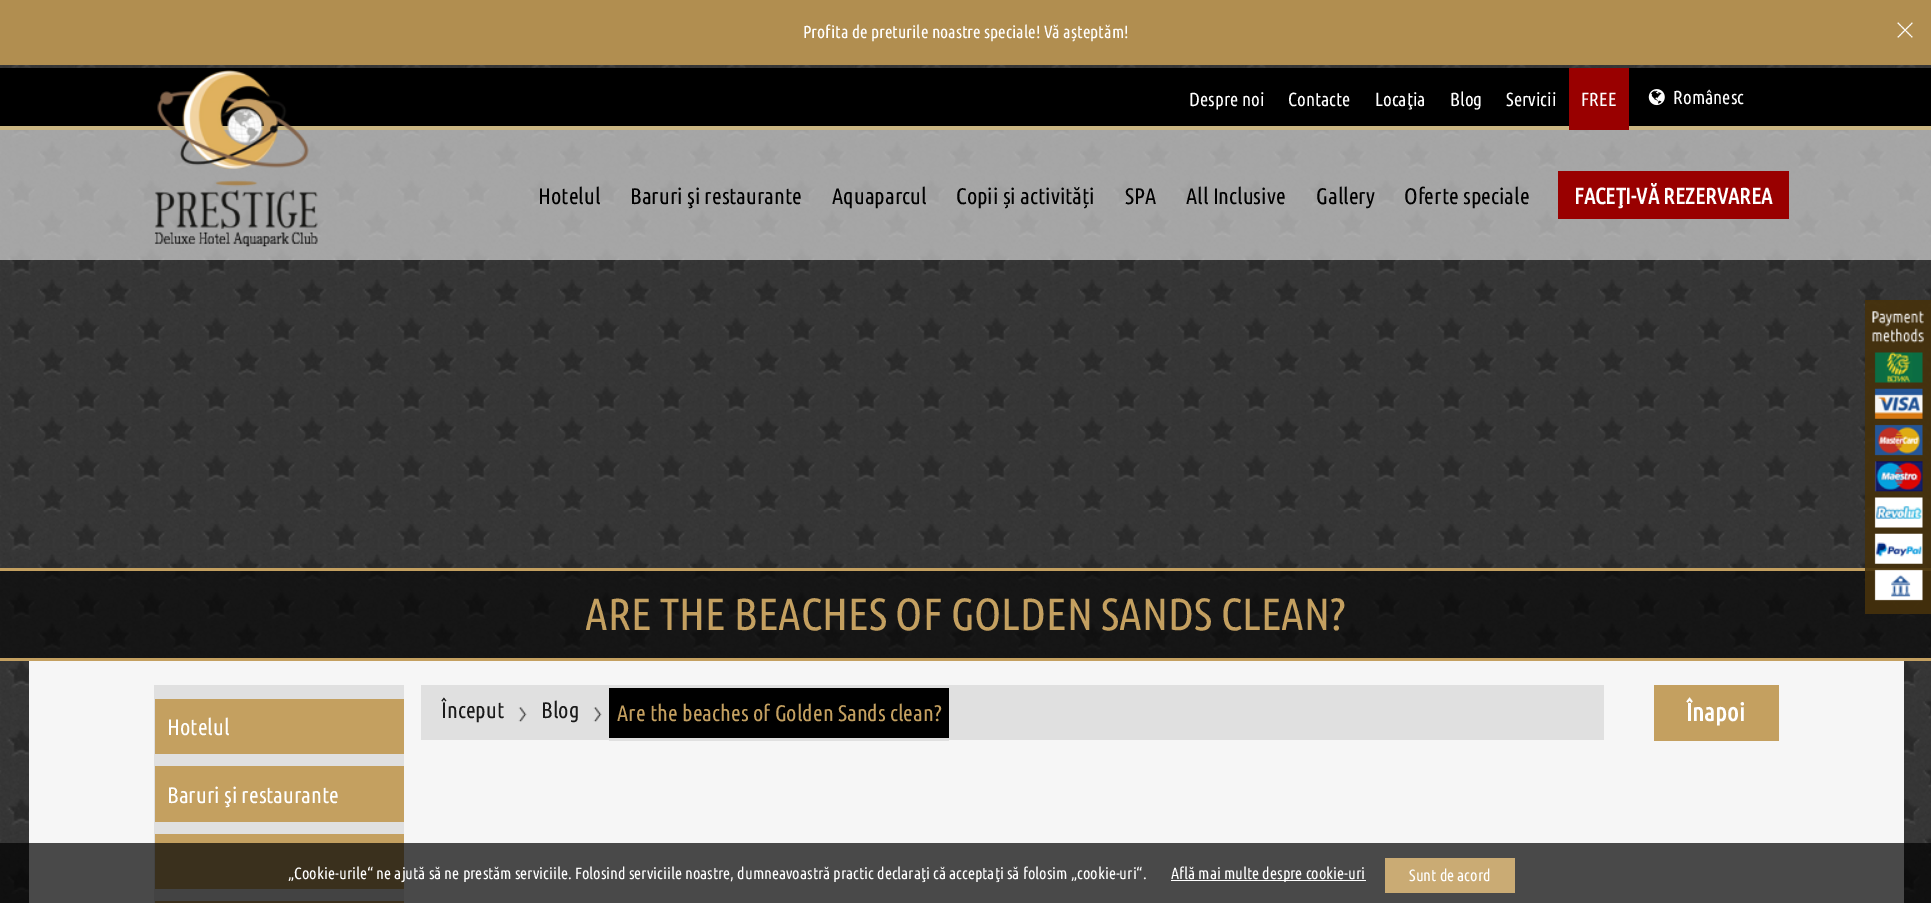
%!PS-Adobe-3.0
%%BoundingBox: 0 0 1931 903
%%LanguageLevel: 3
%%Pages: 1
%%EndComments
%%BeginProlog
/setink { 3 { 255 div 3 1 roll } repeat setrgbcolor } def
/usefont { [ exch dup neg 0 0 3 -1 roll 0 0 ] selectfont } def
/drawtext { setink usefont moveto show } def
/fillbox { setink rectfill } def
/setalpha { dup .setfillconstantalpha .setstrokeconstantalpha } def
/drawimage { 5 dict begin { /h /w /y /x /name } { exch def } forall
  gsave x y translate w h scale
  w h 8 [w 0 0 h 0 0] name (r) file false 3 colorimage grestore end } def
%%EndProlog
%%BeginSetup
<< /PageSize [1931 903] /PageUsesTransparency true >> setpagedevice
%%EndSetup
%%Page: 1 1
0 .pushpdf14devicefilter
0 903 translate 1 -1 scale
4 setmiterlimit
0 0 1931 903 255 255 255 fillbox
(assets/img1.rgb) 0 65 1931 838 drawimage
0 0 1931 65 177 142 80 fillbox
(Profita de preturile noastre speciale! Vă așteptăm!) 803 38 /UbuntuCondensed-Regular 17.5 255 255 255 drawtext
(assets/img2.rgb) 1897 22 16 16 drawimage
0 68 1931 58 0 0 0 fillbox
0 126 1931 4 202 182 131 fillbox
(Despre noi) 1189 106 /UbuntuCondensed-Regular 19 255 255 255 drawtext
(Contacte) 1288 106 /UbuntuCondensed-Regular 19 255 255 255 drawtext
(Locaţia) 1375 106 /UbuntuCondensed-Regular 19 255 255 255 drawtext
(Blog) 1450 106 /UbuntuCondensed-Regular 19 255 255 255 drawtext
(Servicii) 1506 106 /UbuntuCondensed-Regular 19 255 255 255 drawtext
1569 68 60 62 153 0 0 fillbox
(FREE) 1581 106 /UbuntuCondensed-Regular 19 255 255 255 drawtext
(assets/img3.rgb) 1648 89 17 17 drawimage
(Românesc) 1673 104 /UbuntuCondensed-Regular 19 255 255 255 drawtext
0.6 setalpha
0 130 1931 130 240 240 240 fillbox
1 setalpha
(assets/img4.rgb) 154 70 164 177 drawimage
(Hotelul) 538 204 /UbuntuCondensed-Regular 22.5 0 0 0 drawtext
(Baruri şi restaurante) 630 204 /UbuntuCondensed-Regular 22.5 0 0 0 drawtext
(Aquaparcul) 832 204 /UbuntuCondensed-Regular 22.5 0 0 0 drawtext
(Copii și activități) 956 204 /UbuntuCondensed-Regular 22.5 0 0 0 drawtext
(SPA) 1125 204 /UbuntuCondensed-Regular 22.5 0 0 0 drawtext
(All Inclusive) 1186 204 /UbuntuCondensed-Regular 22.5 0 0 0 drawtext
(Gallery) 1316 204 /UbuntuCondensed-Regular 22.5 0 0 0 drawtext
(Oferte speciale) 1404 204 /UbuntuCondensed-Regular 22.5 0 0 0 drawtext
1558 171 231 48 153 0 0 fillbox
(FACEŢI-VĂ REZERVAREA) 1574 204 /UbuntuCondensed-Bold 22.5 255 255 255 drawtext
0.6 setalpha
0 571 1931 87 0 0 0 fillbox
1 setalpha
0 568 1931 3 196 160 96 fillbox
0 658 1931 3 196 160 96 fillbox
(ARE THE BEACHES OF GOLDEN SANDS CLEAN?) 585 630 /UbuntuCondensed-Regular 45 196 160 96 drawtext
(assets/img5.rgb) 1865 300 66 314 drawimage
29 661 1875 242 246 246 246 fillbox
421 685 1183 55 224 224 224 fillbox
(Început) 441 718 /UbuntuCondensed-Regular 22.5 26 26 26 drawtext
(assets/img6.rgb) 518 707 9 15 drawimage
(Blog) 541 718 /UbuntuCondensed-Regular 22.5 26 26 26 drawtext
(assets/img7.rgb) 593 707 9 15 drawimage
609 688 340 50 0 0 0 fillbox
609 740 340 1 224 224 224 fillbox
(Are the beaches of Golden Sands clean?) 617 721 /UbuntuCondensed-Regular 22.5 196 160 96 drawtext
1654 685 125 56 196 160 96 fillbox
(Înapoi) 1686 721 /UbuntuCondensed-Bold 25 255 255 255 drawtext
154 685 250 218 224 224 224 fillbox
155 699 249 55 196 160 96 fillbox
(Hotelul) 167 735 /UbuntuCondensed-Regular 22.5 255 255 255 drawtext
155 766 249 56 196 160 96 fillbox
(Baruri şi restaurante) 167 803 /UbuntuCondensed-Regular 22.5 255 255 255 drawtext
155 834 249 55 196 160 96 fillbox
155 901 249 2 196 160 96 fillbox
0.7 setalpha
0 843 1931 60 0 0 0 fillbox
1 setalpha
(„Cookie-urile“ ne ajută să ne prestăm serviciile. Folosind serviciile noastre, dumneavoastră practic declaraţi că acceptaţi să folosim „cookie-uri“.) 288 879 /UbuntuCondensed-Regular 16.25 255 255 255 drawtext
1171 880 195 1 255 255 255 fillbox
(Află mai multe despre cookie-uri) 1171 879 /UbuntuCondensed-Regular 16.25 255 255 255 drawtext
1385 858 130 35 202 171 116 fillbox
(Sunt de acord) 1409 881 /UbuntuCondensed-Regular 16.25 255 255 255 drawtext
.poppdf14devicefilter showpage
%%EOF
